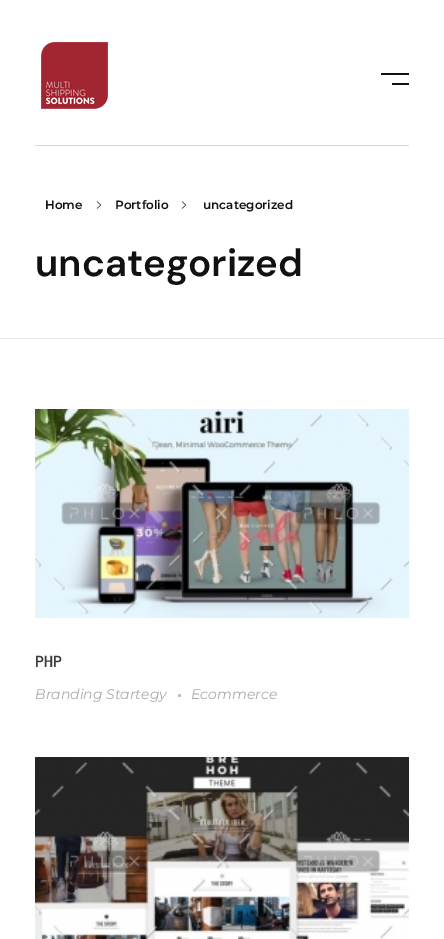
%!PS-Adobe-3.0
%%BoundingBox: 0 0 444 939
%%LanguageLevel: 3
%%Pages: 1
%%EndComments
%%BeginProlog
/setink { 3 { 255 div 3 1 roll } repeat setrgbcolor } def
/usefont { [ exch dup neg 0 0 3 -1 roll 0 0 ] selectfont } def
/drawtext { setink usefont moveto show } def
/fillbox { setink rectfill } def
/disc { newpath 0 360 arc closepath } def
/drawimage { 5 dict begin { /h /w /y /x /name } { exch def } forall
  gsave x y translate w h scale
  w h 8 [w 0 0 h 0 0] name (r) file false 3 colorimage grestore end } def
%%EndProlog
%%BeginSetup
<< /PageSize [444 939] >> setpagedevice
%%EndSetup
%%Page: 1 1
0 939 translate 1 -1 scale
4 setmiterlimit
0 0 444 939 255 255 255 fillbox
35 145 374 1 216 216 217 fillbox
(assets/img1.rgb) 41 42 67 67 drawimage
381 73 28 2 17 17 17 fillbox
392 83 17 2 17 17 17 fillbox
0 338 444 1 234 234 234 fillbox
(Home) 45 209 /Montserrat-SemiBold 12 17 17 17 drawtext
(assets/img2.rgb) 96 201 6 8 drawimage
(Portfolio) 115 209 /Montserrat-SemiBold 12 17 17 17 drawtext
(assets/img2.rgb) 181 201 6 8 drawimage
(uncategorized) 203 209 /Montserrat-SemiBold 12 17 17 17 drawtext
(uncategorized) 35 276 /DMSans-SemiBold 38.5 17 17 17 drawtext
(assets/img3.rgb) 35 409 374 209 drawimage
(PHP) 35 667 /Inconsolata-SemiBold 18 61 61 61 drawtext
(Branding Startegy) 35 699 /Montserrat-Italic 14 170 170 170 drawtext
187 187 187 setink
179.5 695.5 1.5 disc fill
(Ecommerce) 191 699 /Montserrat-Italic 14 170 170 170 drawtext
(assets/img4.rgb) 35 757 374 182 drawimage
showpage
%%EOF
